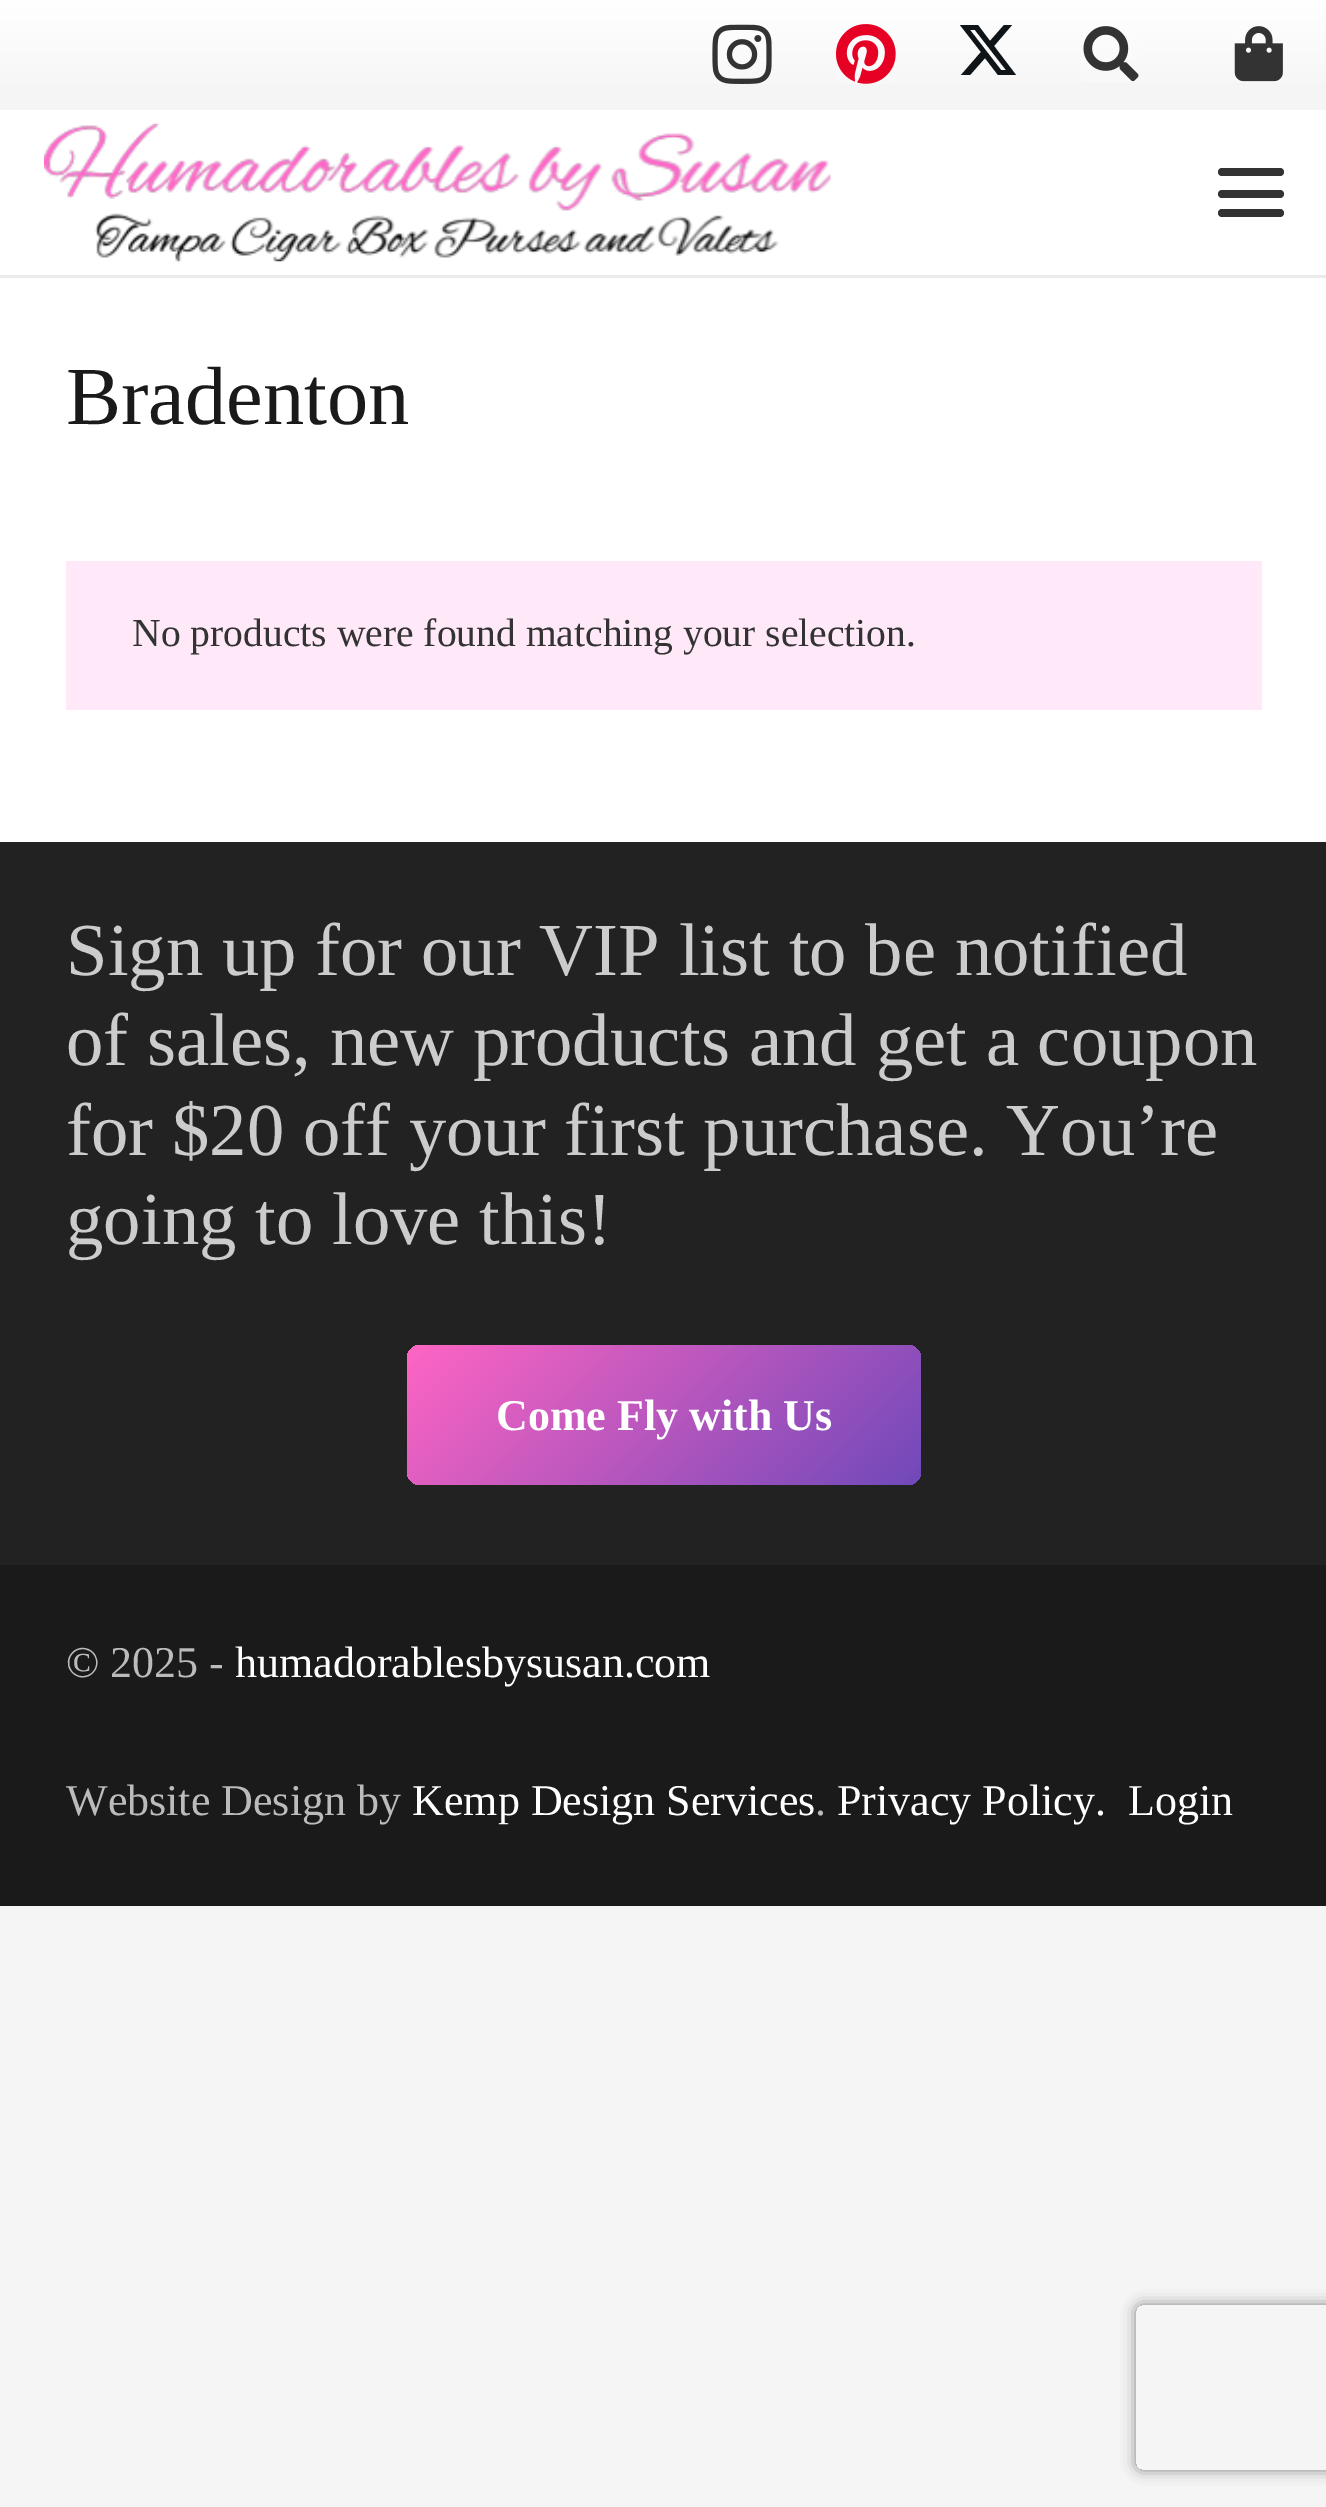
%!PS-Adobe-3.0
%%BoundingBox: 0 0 1326 2507
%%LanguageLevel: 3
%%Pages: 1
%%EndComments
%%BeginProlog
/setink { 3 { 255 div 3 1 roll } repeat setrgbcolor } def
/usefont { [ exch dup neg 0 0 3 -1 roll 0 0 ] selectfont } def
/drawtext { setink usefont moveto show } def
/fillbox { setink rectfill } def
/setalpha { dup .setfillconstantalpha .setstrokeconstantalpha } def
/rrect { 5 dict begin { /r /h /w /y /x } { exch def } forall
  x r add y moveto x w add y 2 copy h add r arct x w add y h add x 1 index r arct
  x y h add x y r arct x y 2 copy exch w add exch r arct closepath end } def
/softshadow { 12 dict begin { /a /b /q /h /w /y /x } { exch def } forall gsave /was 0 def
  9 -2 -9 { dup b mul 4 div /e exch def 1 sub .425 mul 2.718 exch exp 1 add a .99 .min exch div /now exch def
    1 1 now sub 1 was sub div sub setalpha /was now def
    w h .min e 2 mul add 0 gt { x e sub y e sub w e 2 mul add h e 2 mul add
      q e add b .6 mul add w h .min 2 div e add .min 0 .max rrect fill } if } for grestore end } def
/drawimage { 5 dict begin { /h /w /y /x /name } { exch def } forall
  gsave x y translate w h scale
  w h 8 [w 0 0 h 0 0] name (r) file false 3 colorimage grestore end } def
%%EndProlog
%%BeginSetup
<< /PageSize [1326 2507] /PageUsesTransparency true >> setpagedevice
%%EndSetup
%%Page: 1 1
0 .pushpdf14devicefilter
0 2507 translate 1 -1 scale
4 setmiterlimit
0 0 1326 2507 245 245 245 fillbox
0 110 1326 732 255 255 255 fillbox
gsave 0 0 moveto 1326 0 lineto 1326 83 lineto 0 83 lineto closepath clip newpath
<< /ShadingType 2 /ColorSpace /DeviceRGB /Coords [664 110 664 0] /Extend [true true] /Function << /FunctionType 2 /Domain [0 1] /C0 [0.961 0.961 0.961] /C1 [1 1 1] /N 1 >> >> shfill grestore
(assets/img1.rgb) 712 24 60 60 drawimage
(assets/img2.rgb) 836 24 60 60 drawimage
15 20 25 setink
1004 25 moveto 1012 25 lineto 994 46 lineto 1016 75 lineto 998 75 lineto 985 58 lineto 970 75 lineto 961 75 lineto 981 52 lineto 960 25 lineto 978 25 lineto 990 41 lineto closepath 1001 70 moveto 1006 70 lineto 975 30 lineto 970 30 lineto closepath fill
(assets/img3.rgb) 1083 26 56 56 drawimage
(assets/img4.rgb) 1234 26 49 56 drawimage
0 275 1326 3 235 235 235 fillbox
(assets/img5.rgb) 44 123 787 139 drawimage
51 51 51 setink
1218 190 66 8 4 rrect fill
1218 168 66 8 4 rrect fill
1218 209 66 8 4 rrect fill
(Bradenton) 66 424 /LiberationSerif-Regular 82.5 26 26 26 drawtext
66 561 1196 149 255 232 247 fillbox
(No products were found matching your selection.) 132 646 /LiberationSerif-Regular 39.6 51 51 51 drawtext
0 842 1326 723 34 34 34 fillbox
(Sign up for our VIP list to be notified) 66 975 /LiberationSerif-Regular 74.75 204 204 204 drawtext
(of sales, new products and get a coupon) 66 1065 /LiberationSerif-Regular 74.75 204 204 204 drawtext
(for $20 off your first purchase. You’re) 66 1155 /LiberationSerif-Regular 74.75 204 204 204 drawtext
(going to love this!) 66 1244 /LiberationSerif-Regular 74.75 204 204 204 drawtext
gsave 407 1345 514 140 14 rrect clip newpath
<< /ShadingType 2 /ColorSpace /DeviceRGB /Coords [501 1251 828 1579] /Extend [true true] /Function << /FunctionType 2 /Domain [0 1] /C0 [1 0.396 0.765] /C1 [0.439 0.286 0.729] /N 1 >> >> shfill grestore
(Come Fly with Us) 496 1430 /LiberationSerif-Bold 44 255 255 255 drawtext
0 1565 1326 341 26 26 26 fillbox
(© 2025 -) 66 1677 /LiberationSerif-Regular 44 187 187 187 drawtext
(humadorablesbysusan.com) 235 1677 /LiberationSerif-Regular 44 255 255 255 drawtext
(Website Design by) 66 1815 /LiberationSerif-Regular 44 187 187 187 drawtext
(Kemp Design Services) 412 1815 /LiberationSerif-Regular 44 255 255 255 drawtext
(.) 815 1815 /LiberationSerif-Regular 44 187 187 187 drawtext
(Privacy Policy.) 837 1815 /LiberationSerif-Regular 44 255 255 255 drawtext
(Login) 1128 1815 /LiberationSerif-Regular 44 255 255 255 drawtext
gsave
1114 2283 moveto 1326 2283 lineto 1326 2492 lineto 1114 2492 lineto closepath 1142 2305 moveto 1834 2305 lineto 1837.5 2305 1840 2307.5 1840 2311 curveto 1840 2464 lineto 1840 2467.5 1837.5 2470 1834 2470 curveto 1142 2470 lineto 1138.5 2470 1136 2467.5 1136 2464 curveto 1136 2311 lineto 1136 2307.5 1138.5 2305 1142 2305 curveto closepath eoclip newpath
128 128 128 setink
1136 2305 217 165 6 7 1 softshadow
grestore
.poppdf14devicefilter showpage
%%EOF
